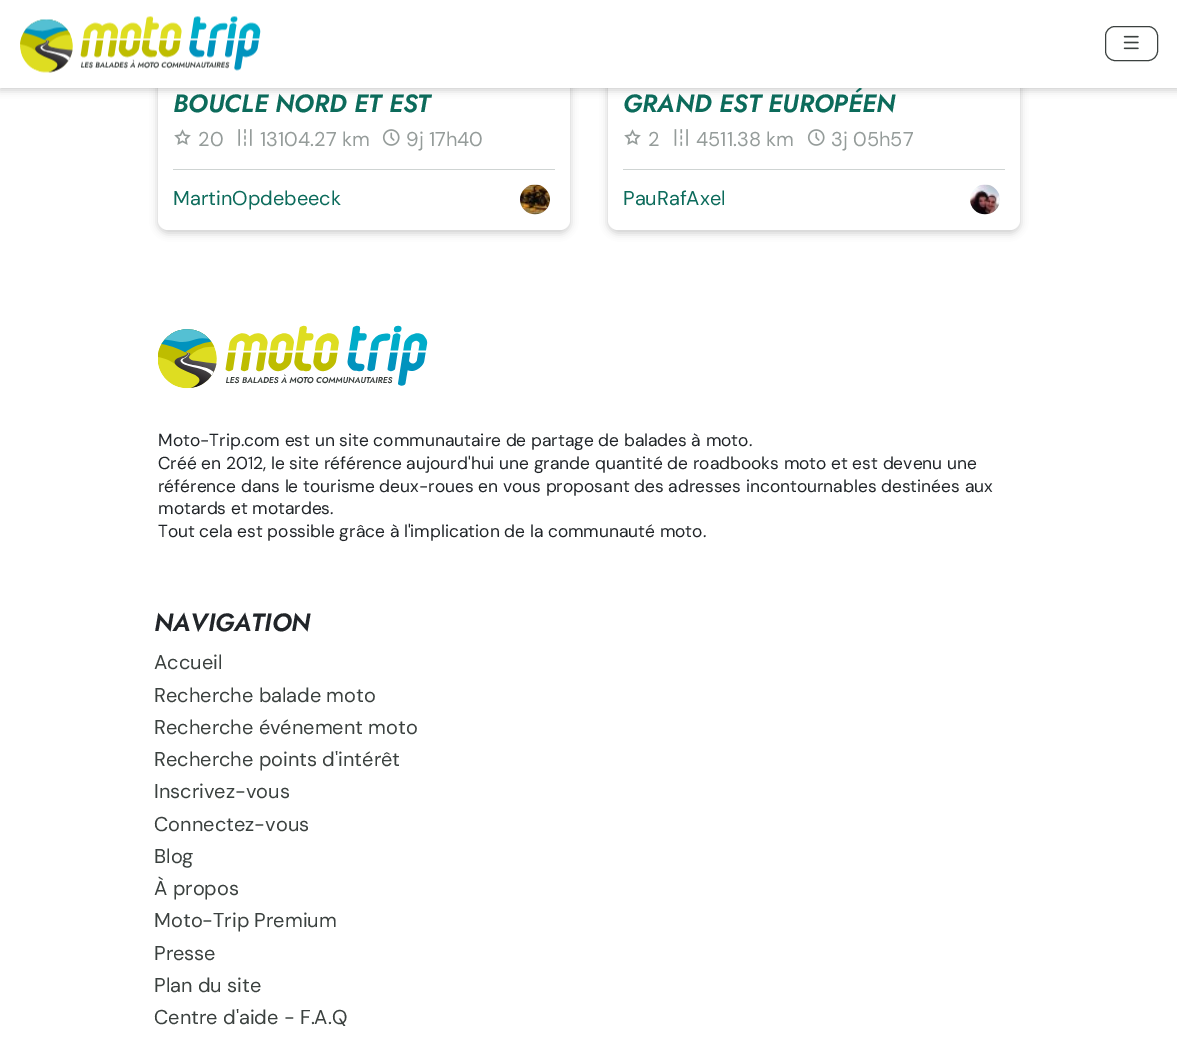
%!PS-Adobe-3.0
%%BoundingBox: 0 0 1177 1038
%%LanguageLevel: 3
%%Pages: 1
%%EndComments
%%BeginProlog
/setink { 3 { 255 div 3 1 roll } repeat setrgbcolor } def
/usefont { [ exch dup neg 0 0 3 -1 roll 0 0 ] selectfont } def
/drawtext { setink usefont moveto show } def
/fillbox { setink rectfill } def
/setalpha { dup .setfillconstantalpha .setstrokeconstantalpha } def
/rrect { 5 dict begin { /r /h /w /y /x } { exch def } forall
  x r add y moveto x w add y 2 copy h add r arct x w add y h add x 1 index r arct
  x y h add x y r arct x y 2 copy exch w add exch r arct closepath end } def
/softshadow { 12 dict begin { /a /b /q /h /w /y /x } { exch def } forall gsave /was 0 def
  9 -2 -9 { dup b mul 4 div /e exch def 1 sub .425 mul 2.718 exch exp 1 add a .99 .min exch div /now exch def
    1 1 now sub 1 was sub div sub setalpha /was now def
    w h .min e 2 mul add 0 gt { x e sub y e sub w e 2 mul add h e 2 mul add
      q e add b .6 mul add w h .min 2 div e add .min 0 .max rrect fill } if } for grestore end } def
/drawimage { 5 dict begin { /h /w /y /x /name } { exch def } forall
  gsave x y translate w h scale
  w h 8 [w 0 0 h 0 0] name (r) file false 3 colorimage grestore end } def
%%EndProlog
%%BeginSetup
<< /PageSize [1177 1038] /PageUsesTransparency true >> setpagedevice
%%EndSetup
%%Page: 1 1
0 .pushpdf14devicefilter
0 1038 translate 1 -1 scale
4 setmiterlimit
0 0 1177 1038 255 255 255 fillbox
0 0 0 setink
158 -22 412 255 10 4 0.2 softshadow
255 255 255 setink
158 -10 412 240 10 rrect fill
0 0 0 setink
608 -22 412 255 10 4 0.2 softshadow
255 255 255 setink
608 -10 412 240 10 rrect fill
0 0 0 setink
0 3 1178 87 0 4 0.2 softshadow
(GRAND EST EUROPÉEN) 623 112 /Jost-SemiBoldItalic 25 12 107 91 drawtext
0 0 1177 88 255 255 255 fillbox
(assets/img1.rgb) 20 16 241 57 drawimage
59 65 63 setink
1105.5 26.5 52 34 9.5 rrect stroke
(assets/img2.rgb) 1123 35 16 15 drawimage
(BOUCLE NORD ET EST) 173 112 /Jost-SemiBoldItalic 25 12 107 91 drawtext
(assets/img3.rgb) 174 129 17 16 drawimage
(20) 198 146 /DMSans-Regular 20 149 156 154 drawtext
(assets/img4.rgb) 238 129 14 17 drawimage
(13104.27 km) 260 146 /DMSans-Regular 20 149 156 154 drawtext
(assets/img5.rgb) 382 129 18 17 drawimage
(9j 17h40) 406 146 /DMSans-Regular 20 149 156 154 drawtext
173 169 382 1 207 212 211 fillbox
(MartinOpdebeeck) 173 205 /DMSans-Regular 20 12 107 91 drawtext
(assets/img6.rgb) 520 184 30 31 drawimage
(assets/img3.rgb) 624 129 17 16 drawimage
(2) 648 146 /DMSans-Regular 20 149 156 154 drawtext
(assets/img7.rgb) 674 129 14 17 drawimage
(4511.38 km) 696 146 /DMSans-Regular 20 149 156 154 drawtext
(assets/img5.rgb) 807 129 18 17 drawimage
(3j 05h57) 831 146 /DMSans-Regular 20 149 156 154 drawtext
623 169 382 1 207 212 211 fillbox
(PauRafAxel) 623 205 /DMSans-Regular 20 12 107 91 drawtext
(assets/img8.rgb) 970 184 30 31 drawimage
(assets/img9.rgb) 158 325 270 64 drawimage
(Moto-Trip.com est un site communautaire de partage de balades à moto.) 158 446 /DMSans-Regular 17.4 33 37 41 drawtext
(Créé en 2012, le site référence aujourd'hui une grande quantité de roadbooks moto et est devenu une) 158 469 /DMSans-Regular 17.4 33 37 41 drawtext
(référence dans le tourisme deux-roues en vous proposant des adresses incontournables destinées aux) 158 492 /DMSans-Regular 17.4 33 37 41 drawtext
(motards et motardes.) 158 514 /DMSans-Regular 17.4 33 37 41 drawtext
(Tout cela est possible grâce à l'implication de la communauté moto.) 158 537 /DMSans-Regular 17.4 33 37 41 drawtext
(NAVIGATION) 154 631 /Jost-SemiBoldItalic 25 33 37 41 drawtext
(Accueil) 154 669 /DMSans-Regular 20 59 65 63 drawtext
(Recherche balade moto) 154 702 /DMSans-Regular 20 59 65 63 drawtext
(Recherche événement moto) 154 734 /DMSans-Regular 20 59 65 63 drawtext
(Recherche points d'intérêt) 154 766 /DMSans-Regular 20 59 65 63 drawtext
(Inscrivez-vous) 154 798 /DMSans-Regular 20 59 65 63 drawtext
(Connectez-vous) 154 831 /DMSans-Regular 20 59 65 63 drawtext
(Blog) 154 863 /DMSans-Regular 20 59 65 63 drawtext
(À propos) 154 895 /DMSans-Regular 20 59 65 63 drawtext
(Moto-Trip Premium) 154 927 /DMSans-Regular 20 59 65 63 drawtext
(Presse) 154 960 /DMSans-Regular 20 59 65 63 drawtext
(Plan du site) 154 992 /DMSans-Regular 20 59 65 63 drawtext
(Centre d'aide - F.A.Q) 154 1024 /DMSans-Regular 20 59 65 63 drawtext
.poppdf14devicefilter showpage
%%EOF
